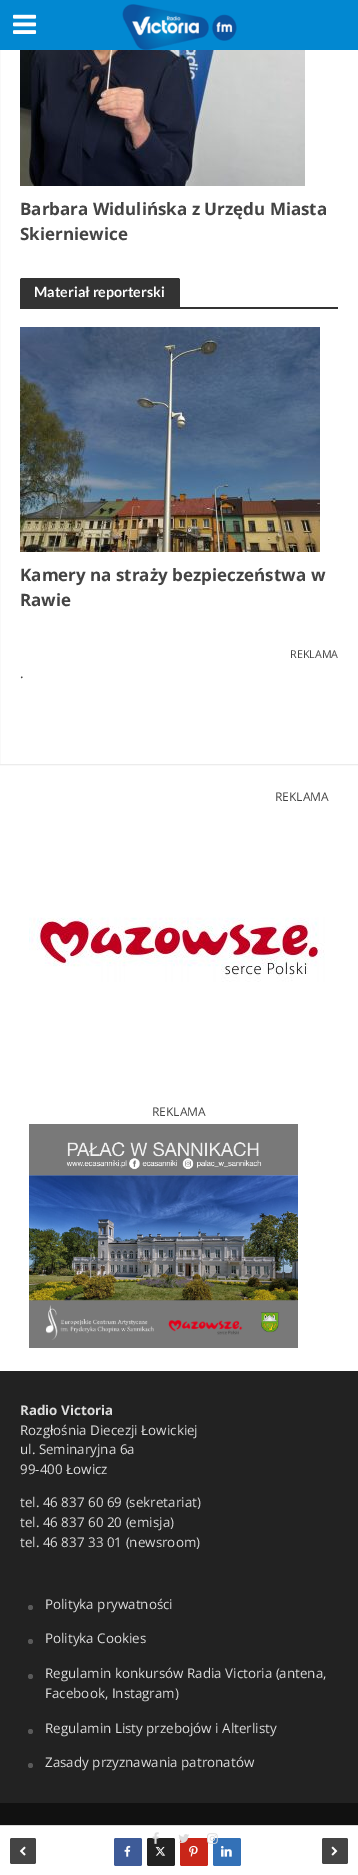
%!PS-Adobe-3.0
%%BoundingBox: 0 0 358 1875
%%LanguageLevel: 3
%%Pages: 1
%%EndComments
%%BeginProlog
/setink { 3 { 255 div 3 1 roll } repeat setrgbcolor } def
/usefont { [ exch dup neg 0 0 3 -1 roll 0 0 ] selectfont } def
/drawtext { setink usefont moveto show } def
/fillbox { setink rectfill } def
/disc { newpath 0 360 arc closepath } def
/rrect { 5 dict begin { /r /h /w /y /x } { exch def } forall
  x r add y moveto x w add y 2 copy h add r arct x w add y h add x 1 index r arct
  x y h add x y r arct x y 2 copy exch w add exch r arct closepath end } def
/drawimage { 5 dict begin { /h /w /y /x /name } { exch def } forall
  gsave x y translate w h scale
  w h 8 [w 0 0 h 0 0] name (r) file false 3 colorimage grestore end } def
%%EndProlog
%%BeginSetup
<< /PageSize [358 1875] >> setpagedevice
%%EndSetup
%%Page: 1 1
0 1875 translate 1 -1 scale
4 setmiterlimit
0 0 358 1875 255 255 255 fillbox
236 236 236 setink
-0.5 -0.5 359 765 rectstroke
0 0 358 50 2 136 209 fillbox
(assets/img1.rgb) 13 14 24 20 drawimage
(assets/img3.rgb) 20 50 285 136 drawimage
(assets/img2.rgb) 122 4 115 47 drawimage
(Barbara Widulińska z Urzędu Miasta) 20 215 /OpenSans-Bold 17 68 68 68 drawtext
(Skierniewice) 20 240 /OpenSans-Bold 17 68 68 68 drawtext
51 51 51 setink
22 278 moveto 178 278 lineto 179 278 180 279 180 280 curveto 180 307 lineto 20 307 lineto 20 280 lineto 20 279 21 278 22 278 curveto closepath fill
(Materiał reporterski) 34 297 /Lato-Bold 14.25 255 255 255 drawtext
20 307 318 2 51 51 51 fillbox
(assets/img4.rgb) 20 327 300 225 drawimage
(Kamery na straży bezpieczeństwa w) 20 581 /OpenSans-Bold 17 68 68 68 drawtext
(Rawie) 20 606 /OpenSans-Bold 17 68 68 68 drawtext
(REKLAMA) 290 658 /OpenSans-Regular 10.75 68 68 68 drawtext
(.) 20 678 /OpenSans-Regular 13.4 68 68 68 drawtext
0 1825 358 1 218 218 218 fillbox
68 68 68 setink
10 1838 26 26 2 rrect fill
(assets/img5.rgb) 19 1846 7 10 drawimage
62 91 152 setink
114 1838 28 28 2 rrect fill
(assets/img6.rgb) 124 1845 7 12 drawimage
34 34 34 setink
147 1838 28 28 2 rrect fill
(assets/img7.rgb) 155 1846 11 10 drawimage
201 38 25 setink
180 1838 28 28 2 rrect fill
(assets/img8.rgb) 189 1845 9 12 drawimage
51 113 183 setink
213 1838 28 28 2 rrect fill
(assets/img9.rgb) 221 1846 11 11 drawimage
68 68 68 setink
322 1838 26 26 2 rrect fill
(assets/img10.rgb) 331 1846 7 10 drawimage
(REKLAMA) 275 801 /OpenSans-Regular 12 68 68 68 drawtext
(assets/img11.rgb) 29 917 296 65 drawimage
(REKLAMA) 152 1116 /OpenSans-Regular 12 68 68 68 drawtext
(assets/img12.rgb) 29 1124 269 224 drawimage
0 1371 358 432 34 34 34 fillbox
(Radio Victoria) 20 1415 /OpenSans-Bold 13.4 221 221 221 drawtext
(Rozgłośnia Diecezji Łowickiej) 20 1435 /OpenSans-Regular 13.4 221 221 221 drawtext
(ul. Seminaryjna 6a) 20 1454 /OpenSans-Regular 13.4 221 221 221 drawtext
(99-400 Łowicz) 20 1474 /OpenSans-Regular 13.4 221 221 221 drawtext
(tel. 46 837 60 69 \(sekretariat\)) 20 1507 /OpenSans-Regular 13.4 221 221 221 drawtext
(tel. 46 837 60 20 \(emisja\)) 20 1527 /OpenSans-Regular 13.4 221 221 221 drawtext
(tel. 46 837 33 01 \(newsroom\)) 20 1547 /OpenSans-Regular 13.4 221 221 221 drawtext
90 90 90 setink
30.5 1607.5 2.5 disc fill
(Polityka prywatności) 45 1609 /OpenSans-Regular 13.4 221 221 221 drawtext
90 90 90 setink
30.5 1641.5 2.5 disc fill
(Polityka Cookies) 45 1643 /OpenSans-Regular 13.4 221 221 221 drawtext
90 90 90 setink
30.5 1676.5 2.5 disc fill
(Regulamin konkursów Radia Victoria \(antena,) 45 1678 /OpenSans-Regular 13.4 221 221 221 drawtext
(Facebook, Instagram\)) 45 1698 /OpenSans-Regular 13.4 221 221 221 drawtext
90 90 90 setink
30.5 1731.5 2.5 disc fill
(Regulamin Listy przebojów i Alterlisty) 45 1733 /OpenSans-Regular 13.4 221 221 221 drawtext
90 90 90 setink
30.5 1765.5 2.5 disc fill
(Zasady przyznawania patronatów) 45 1767 /OpenSans-Regular 13.4 221 221 221 drawtext
0 1803 358 22 17 17 17 fillbox
(assets/img13.rgb) 152 1832 7 12 drawimage
(assets/img14.rgb) 178 1834 11 9 drawimage
(assets/img15.rgb) 207 1833 11 11 drawimage
showpage
%%EOF
